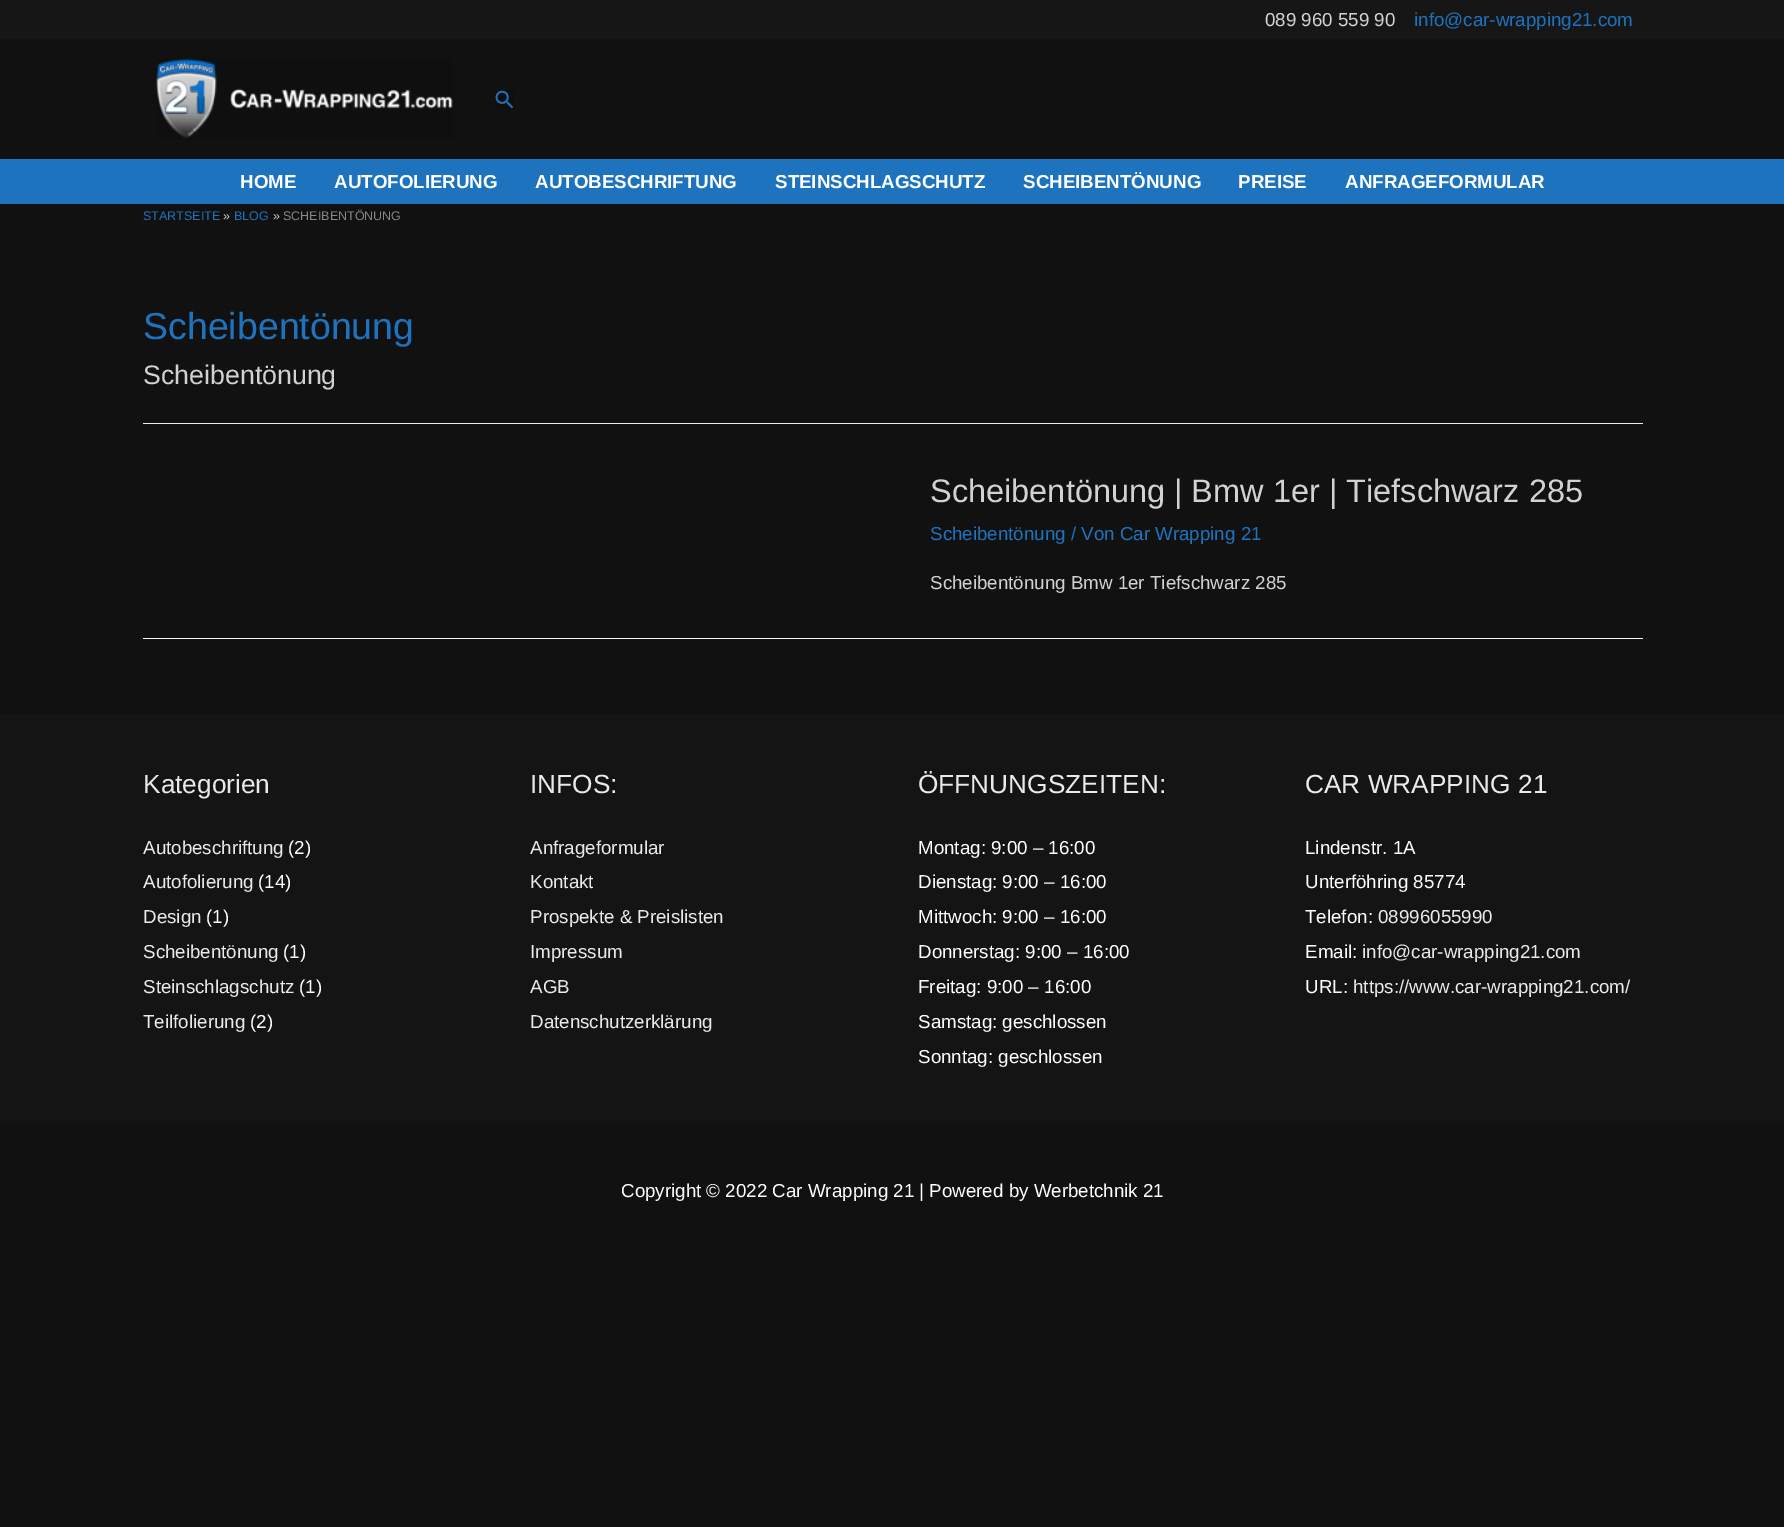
%!PS-Adobe-3.0
%%BoundingBox: 0 0 1784 1527
%%LanguageLevel: 3
%%Pages: 1
%%EndComments
%%BeginProlog
/setink { 3 { 255 div 3 1 roll } repeat setrgbcolor } def
/usefont { [ exch dup neg 0 0 3 -1 roll 0 0 ] selectfont } def
/drawtext { setink usefont moveto show } def
/fillbox { setink rectfill } def
/drawimage { 5 dict begin { /h /w /y /x /name } { exch def } forall
  gsave x y translate w h scale
  w h 8 [w 0 0 h 0 0] name (r) file false 3 colorimage grestore end } def
%%EndProlog
%%BeginSetup
<< /PageSize [1784 1527] >> setpagedevice
%%EndSetup
%%Page: 1 1
0 1527 translate 1 -1 scale
4 setmiterlimit
0 0 1784 1527 17 17 17 fillbox
0 0 1784 39 22 22 22 fillbox
(089 960 559 90) 1265 26 /LiberationSans-Regular 18.75 210 210 210 drawtext
(info@car-wrapping21.com) 1414 26 /LiberationSans-Regular 18.75 30 115 190 drawtext
(assets/img1.rgb) 156 58 297 81 drawimage
(assets/img2.rgb) 495 90 19 19 drawimage
0 159 1784 45 30 115 190 fillbox
(HOME) 240 188 /LiberationSans-Bold 18.75 255 255 255 drawtext
(AUTOFOLIERUNG) 334 188 /LiberationSans-Bold 18.75 255 255 255 drawtext
(AUTOBESCHRIFTUNG) 535 188 /LiberationSans-Bold 18.75 255 255 255 drawtext
(STEINSCHLAGSCHUTZ) 775 188 /LiberationSans-Bold 18.75 255 255 255 drawtext
(SCHEIBENTÖNUNG) 1023 188 /LiberationSans-Bold 18.75 255 255 255 drawtext
(PREISE) 1238 188 /LiberationSans-Bold 18.75 255 255 255 drawtext
(ANFRAGEFORMULAR) 1345 188 /LiberationSans-Bold 18.75 255 255 255 drawtext
(STARTSEITE) 143 220 /LiberationSans-Regular 12.5 30 115 190 drawtext
(») 223 220 /LiberationSans-Regular 12.5 210 210 210 drawtext
(BLOG) 234 220 /LiberationSans-Regular 12.5 30 115 190 drawtext
(») 273 220 /LiberationSans-Regular 12.5 210 210 210 drawtext
(SCHEIBENTÖNUNG) 283 220 /LiberationSans-Regular 12.5 136 136 136 drawtext
143 423 1500 1 238 238 238 fillbox
(Scheibentönung) 143 339 /LiberationSans-Regular 37.5 30 115 190 drawtext
(Scheibentönung) 143 384 /LiberationSans-Regular 26.75 210 210 210 drawtext
143 638 1500 1 248 248 248 fillbox
(Scheibentönung | Bmw 1er | Tiefschwarz 285) 930 502 /LiberationSans-Regular 32.5 210 210 210 drawtext
(Scheibentönung / Von Car Wrapping 21) 930 540 /LiberationSans-Regular 18.75 30 115 190 drawtext
(Scheibentönung Bmw 1er Tiefschwarz 285) 930 589 /LiberationSans-Regular 18.75 210 210 210 drawtext
0 714 1784 410 20 20 20 fillbox
(Kategorien) 143 793 /LiberationSans-Regular 26.25 234 234 234 drawtext
(Autobeschriftung) 143 854 /LiberationSans-Regular 18.75 234 234 234 drawtext
(\(2\)) 288 854 /LiberationSans-Regular 18.75 255 255 255 drawtext
(Autofolierung) 143 888 /LiberationSans-Regular 18.75 234 234 234 drawtext
(\(14\)) 258 888 /LiberationSans-Regular 18.75 255 255 255 drawtext
(Design) 143 923 /LiberationSans-Regular 18.75 234 234 234 drawtext
(\(1\)) 206 923 /LiberationSans-Regular 18.75 255 255 255 drawtext
(Scheibentönung) 143 958 /LiberationSans-Regular 18.75 234 234 234 drawtext
(\(1\)) 283 958 /LiberationSans-Regular 18.75 255 255 255 drawtext
(Steinschlagschutz) 143 993 /LiberationSans-Regular 18.75 234 234 234 drawtext
(\(1\)) 299 993 /LiberationSans-Regular 18.75 255 255 255 drawtext
(Teilfolierung) 143 1028 /LiberationSans-Regular 18.75 234 234 234 drawtext
(\(2\)) 250 1028 /LiberationSans-Regular 18.75 255 255 255 drawtext
(INFOS:) 530 793 /LiberationSans-Regular 26.25 234 234 234 drawtext
(Anfrageformular) 530 854 /LiberationSans-Regular 18.75 234 234 234 drawtext
(Kontakt) 530 888 /LiberationSans-Regular 18.75 234 234 234 drawtext
(Prospekte & Preislisten) 530 923 /LiberationSans-Regular 18.75 234 234 234 drawtext
(Impressum) 530 958 /LiberationSans-Regular 18.75 234 234 234 drawtext
(AGB) 530 993 /LiberationSans-Regular 18.75 234 234 234 drawtext
(Datenschutzerklärung) 530 1028 /LiberationSans-Regular 18.75 234 234 234 drawtext
(ÖFFNUNGSZEITEN:) 918 793 /LiberationSans-Regular 26.25 234 234 234 drawtext
(Montag: 9:00 – 16:00) 918 854 /LiberationSans-Regular 18.75 255 255 255 drawtext
(Dienstag: 9:00 – 16:00) 918 888 /LiberationSans-Regular 18.75 255 255 255 drawtext
(Mittwoch: 9:00 – 16:00) 918 923 /LiberationSans-Regular 18.75 255 255 255 drawtext
(Donnerstag: 9:00 – 16:00) 918 958 /LiberationSans-Regular 18.75 255 255 255 drawtext
(Freitag: 9:00 – 16:00) 918 993 /LiberationSans-Regular 18.75 255 255 255 drawtext
(Samstag: geschlossen) 918 1028 /LiberationSans-Regular 18.75 255 255 255 drawtext
(Sonntag: geschlossen) 918 1063 /LiberationSans-Regular 18.75 255 255 255 drawtext
(CAR WRAPPING 21) 1305 793 /LiberationSans-Regular 26.25 234 234 234 drawtext
(Lindenstr. 1A) 1305 854 /LiberationSans-Regular 18.75 255 255 255 drawtext
(Unterföhring 85774) 1305 888 /LiberationSans-Regular 18.75 255 255 255 drawtext
(Telefon:) 1305 923 /LiberationSans-Regular 18.75 255 255 255 drawtext
(08996055990) 1378 923 /LiberationSans-Regular 18.75 234 234 234 drawtext
(Email:) 1305 958 /LiberationSans-Regular 18.75 255 255 255 drawtext
(info@car-wrapping21.com) 1362 958 /LiberationSans-Regular 18.75 234 234 234 drawtext
(URL:) 1305 993 /LiberationSans-Regular 18.75 255 255 255 drawtext
(https://www.car-wrapping21.com/) 1353 993 /LiberationSans-Regular 18.75 234 234 234 drawtext
(Copyright © 2022 Car Wrapping 21 | Powered by Werbetchnik 21) 621 1197 /LiberationSans-Regular 18.75 255 255 255 drawtext
showpage
%%EOF
